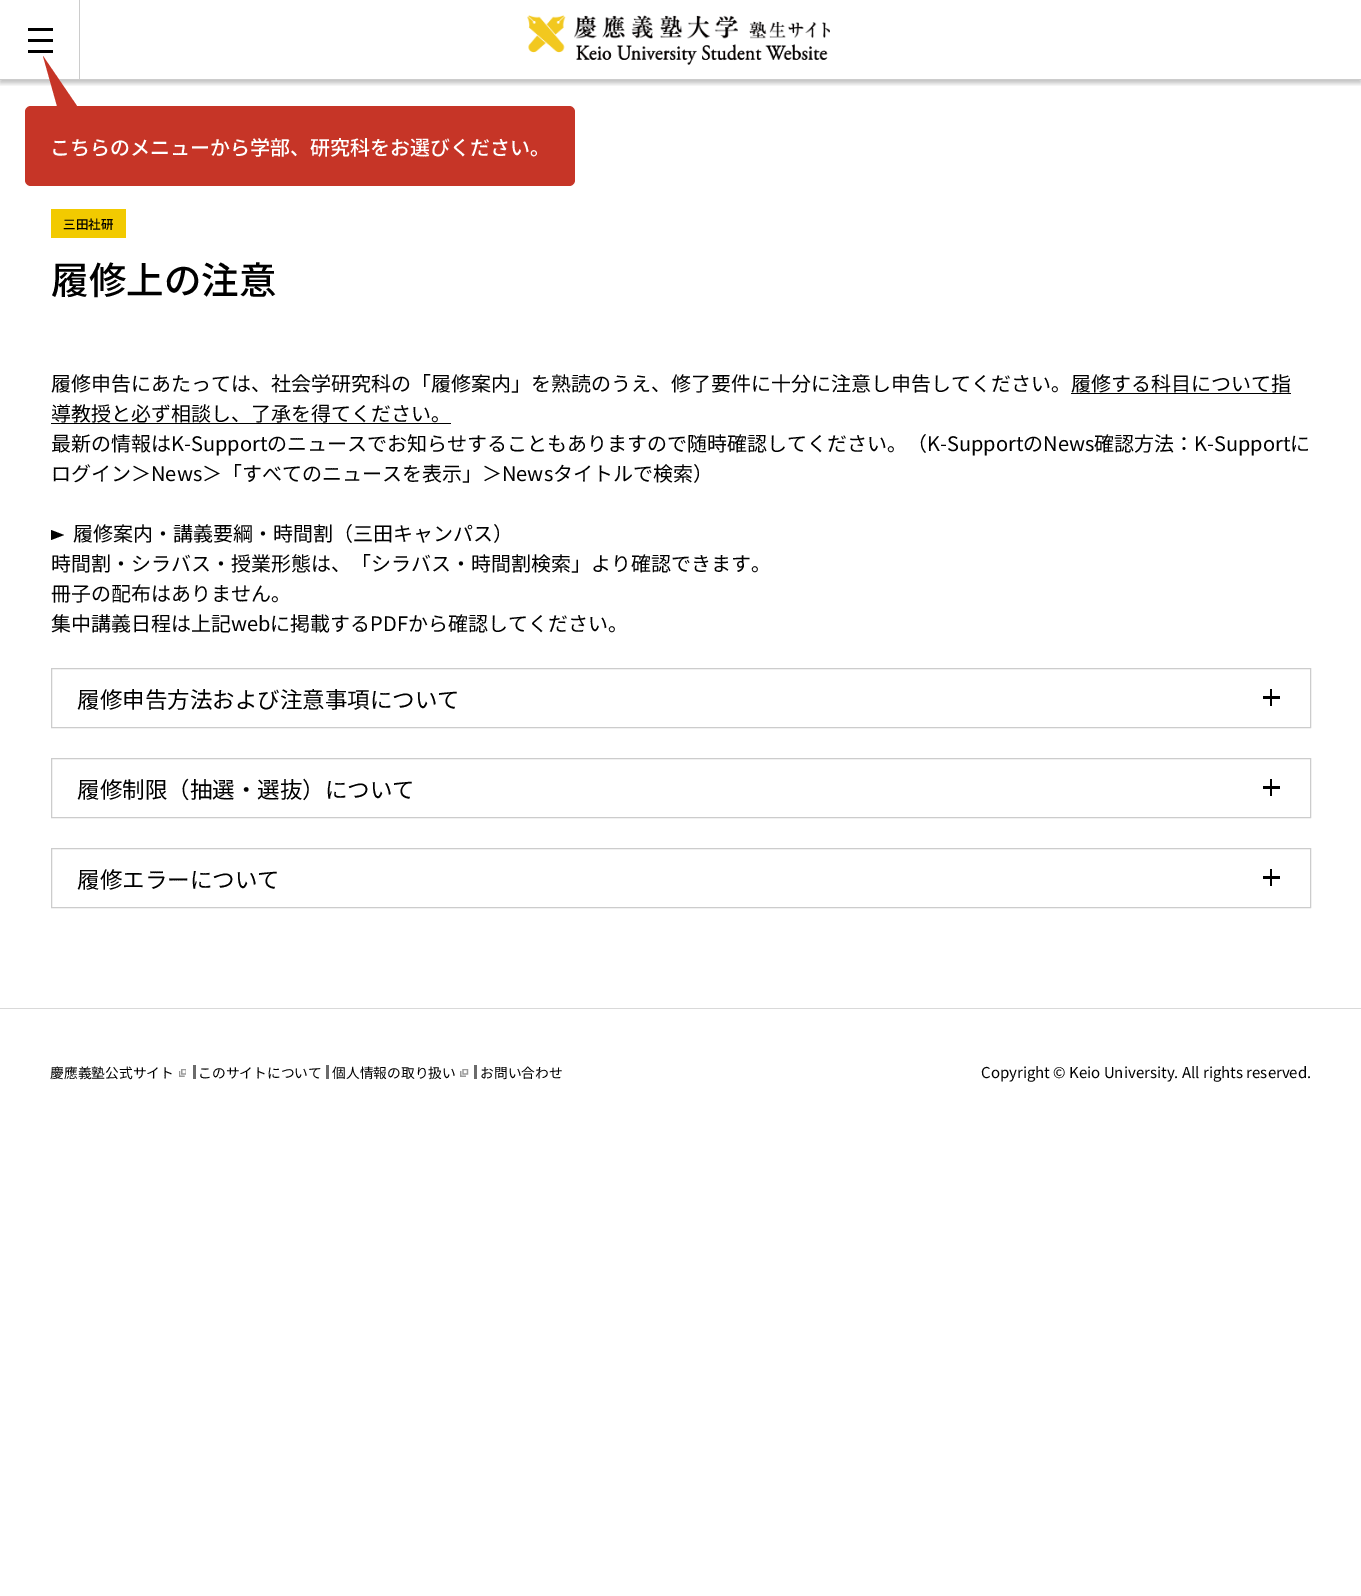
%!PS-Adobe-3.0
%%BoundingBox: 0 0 1361 1596
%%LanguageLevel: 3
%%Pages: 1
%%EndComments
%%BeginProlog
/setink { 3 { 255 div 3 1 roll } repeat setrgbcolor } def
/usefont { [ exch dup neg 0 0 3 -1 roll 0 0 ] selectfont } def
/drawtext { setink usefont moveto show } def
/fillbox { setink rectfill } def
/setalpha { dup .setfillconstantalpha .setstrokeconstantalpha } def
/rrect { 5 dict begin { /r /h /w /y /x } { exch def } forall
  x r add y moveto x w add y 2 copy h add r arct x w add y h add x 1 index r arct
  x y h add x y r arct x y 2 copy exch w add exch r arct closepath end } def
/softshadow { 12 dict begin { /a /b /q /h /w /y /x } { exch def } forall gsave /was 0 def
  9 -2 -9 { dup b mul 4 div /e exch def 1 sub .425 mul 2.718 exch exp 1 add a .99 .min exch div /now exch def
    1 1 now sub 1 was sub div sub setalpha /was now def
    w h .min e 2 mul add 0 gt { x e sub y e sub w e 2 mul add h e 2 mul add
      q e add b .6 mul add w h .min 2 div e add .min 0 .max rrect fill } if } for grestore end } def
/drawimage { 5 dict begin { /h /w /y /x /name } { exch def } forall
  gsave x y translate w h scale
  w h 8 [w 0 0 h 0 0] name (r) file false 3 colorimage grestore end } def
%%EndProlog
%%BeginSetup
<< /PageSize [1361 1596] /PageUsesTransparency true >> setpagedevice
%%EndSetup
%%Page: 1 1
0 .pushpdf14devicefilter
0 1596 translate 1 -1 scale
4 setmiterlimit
0 0 1361 1596 255 255 255 fillbox
gsave
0 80 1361 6 rectclip
0 0 0 setink
0 3 1361 80 0 2.5 0.25 softshadow
grestore
0 79 1361 1 204 204 204 fillbox
79 0 1 80 204 204 204 fillbox
28 28 25 3 0 0 0 fillbox
28 39 25 3 0 0 0 fillbox
28 50 25 3 0 0 0 fillbox
(assets/img1.rgb) 527 15 303 50 drawimage
198 53 39 setink
25 106 550 80 6 rrect fill
77 106 moveto 57 106 lineto 43 56 lineto closepath fill
(こちらのメニューから学部、研究科をお選びください。) 50 155 /NotoSansJP-Medium 20 255 255 255 drawtext
51 209 75 29 242 202 0 fillbox
(三田社研) 63 229 /NotoSansJP-Medium 12.5 0 0 0 drawtext
(履修上の注意) 51 294 /NotoSansJP-Medium 37.5 0 0 0 drawtext
(履修申告にあたっては、社会学研究科の「履修案内」を熟読のうえ、修了要件に十分に注意し申告してください。履修する科目について指) 51 391 /NotoSansJP-Regular 20 0 0 0 drawtext
(導教授と必ず相談し、了承を得てください。) 51 421 /NotoSansJP-Regular 20 0 0 0 drawtext
1071 393 220 1 0 0 0 fillbox
51 423 400 1 0 0 0 fillbox
(最新の情報はK-Supportのニュースでお知らせすることもありますので随時確認してください。（K-SupportのNews確認方法：K-Supportに) 51 451 /NotoSansJP-Regular 20 0 0 0 drawtext
(ログイン＞News＞「すべてのニュースを表示」＞Newsタイトルで検索）) 51 481 /NotoSansJP-Regular 20 0 0 0 drawtext
51 540 moveto 51 530 lineto 64 535 lineto closepath fill
(履修案内・講義要綱・時間割（三田キャンパス）) 73 541 /NotoSansJP-Regular 20 0 0 0 drawtext
(時間割・シラバス・授業形態は、「シラバス・時間割検索」より確認できます。) 51 571 /NotoSansJP-Regular 20 0 0 0 drawtext
(冊子の配布はありません。) 51 601 /NotoSansJP-Regular 20 0 0 0 drawtext
(集中講義日程は上記webに掲載するPDFから確認してください。) 51 631 /NotoSansJP-Regular 20 0 0 0 drawtext
204 204 204 setink
51.5 668.5 1259 59 rectstroke
(履修申告方法および注意事項について) 77 708 /NotoSansJP-Regular 22.5 0 0 0 drawtext
1263 696 17 3 0 0 0 fillbox
1270 689 2 17 0 0 0 fillbox
204 204 204 setink
51.5 758.5 1259 59 rectstroke
(履修制限（抽選・選抜）について) 77 798 /NotoSansJP-Regular 22.5 0 0 0 drawtext
1263 786 17 3 0 0 0 fillbox
1270 779 2 17 0 0 0 fillbox
204 204 204 setink
51.5 848.5 1259 59 rectstroke
(履修エラーについて) 77 888 /NotoSansJP-Regular 22.5 0 0 0 drawtext
1263 876 17 3 0 0 0 fillbox
1270 869 2 17 0 0 0 fillbox
0 1008 1361 1 217 217 217 fillbox
193 1065 3 14 107 107 107 fillbox
(慶應義塾公式サイト) 50 1078 /NotoSansJP-Regular 13.75 0 0 0 drawtext
(assets/img2.rgb) 179 1069 7 8 drawimage
326 1065 3 14 107 107 107 fillbox
(このサイトについて) 198 1078 /NotoSansJP-Regular 13.75 0 0 0 drawtext
474 1065 3 14 107 107 107 fillbox
(個人情報の取り扱い) 332 1078 /NotoSansJP-Regular 13.75 0 0 0 drawtext
(assets/img3.rgb) 460 1069 9 8 drawimage
(お問い合わせ) 480 1078 /NotoSansJP-Regular 13.75 0 0 0 drawtext
(Copyright © Keio University. All rights reserved.) 981 1078 /NotoSansJP-Regular 15 0 0 0 drawtext
.poppdf14devicefilter showpage
%%EOF
